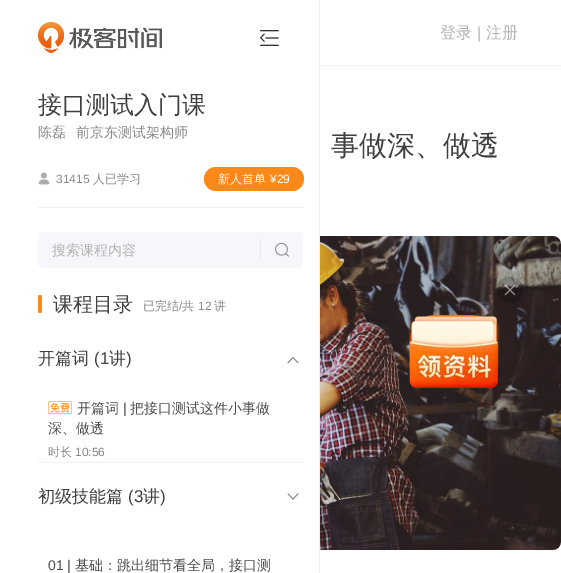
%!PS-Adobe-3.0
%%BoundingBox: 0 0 561 573
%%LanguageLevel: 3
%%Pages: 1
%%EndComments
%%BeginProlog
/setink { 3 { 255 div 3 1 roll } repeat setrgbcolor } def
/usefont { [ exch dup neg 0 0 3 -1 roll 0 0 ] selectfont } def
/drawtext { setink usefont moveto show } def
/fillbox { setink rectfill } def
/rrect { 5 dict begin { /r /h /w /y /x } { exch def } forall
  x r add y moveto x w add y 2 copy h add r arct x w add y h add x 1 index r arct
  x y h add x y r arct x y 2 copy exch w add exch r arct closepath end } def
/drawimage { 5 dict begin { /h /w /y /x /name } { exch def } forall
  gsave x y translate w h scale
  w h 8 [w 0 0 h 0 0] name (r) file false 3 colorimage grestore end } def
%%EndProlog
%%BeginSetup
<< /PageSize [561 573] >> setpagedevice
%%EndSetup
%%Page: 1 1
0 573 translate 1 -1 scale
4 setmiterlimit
0 0 561 573 255 255 255 fillbox
319 0 1 573 239 240 242 fillbox
(assets/img1.rgb) 38 22 124 31 drawimage
(assets/img2.rgb) 260 30 19 16 drawimage
38 207 266 1 239 240 242 fillbox
(接口测试入门课) 38 113 /WenQuanYiZenHei-Medium 24 64 64 64 drawtext
(陈磊) 38 137 /WenQuanYiZenHei-Medium 14 136 136 136 drawtext
(前京东测试架构师) 76 137 /WenQuanYiZenHei-Medium 14 136 136 136 drawtext
(assets/img3.rgb) 38 172 12 13 drawimage
(31415) 56 183 /LiberationSans-Regular 12 136 136 136 drawtext
(人已学习) 93 183 /WenQuanYiZenHei-Medium 12 136 136 136 drawtext
250 137 25 setink
204 167 100 24 12 rrect fill
(新⼈⾸单) 218 183 /WenQuanYiZenHei-Medium 12 255 255 255 drawtext
(¥29) 270 183 /LiberationSans-Regular 12 255 255 255 drawtext
246 247 251 setink
38 232 265 36 5 rrect fill
(搜索课程内容) 52 255 /WenQuanYiZenHei-Medium 14 178 178 178 drawtext
260 239 1 22 232 234 236 fillbox
(assets/img4.rgb) 275 242 14 15 drawimage
250 137 25 setink
38 295 4 18 2 rrect fill
(课程目录) 53 311 /WenQuanYiZenHei-Medium 20 64 64 64 drawtext
(已完结) 143 310 /WenQuanYiZenHei-Medium 12 136 136 136 drawtext
(/) 179 310 /LiberationSans-Regular 12 136 136 136 drawtext
(共) 182 310 /WenQuanYiZenHei-Medium 12 136 136 136 drawtext
(12) 198 310 /LiberationSans-Regular 12 136 136 136 drawtext
(讲) 214 310 /WenQuanYiZenHei-Medium 12 136 136 136 drawtext
(开篇词) 38 364 /WenQuanYiZenHei-Medium 17 64 64 64 drawtext
(\(1) 94 364 /LiberationSans-Regular 17 64 64 64 drawtext
(讲) 109 364 /WenQuanYiZenHei-Medium 17 64 64 64 drawtext
(\)) 126 364 /LiberationSans-Regular 17 64 64 64 drawtext
(assets/img5.rgb) 287 357 12 7 drawimage
(assets/img6.rgb) 48 401 24 13 drawimage
(开篇词) 77 413 /WenQuanYiZenHei-Medium 14 76 76 76 drawtext
(|) 123 413 /LiberationSans-Regular 14 76 76 76 drawtext
(把接口测试这件小事做) 130 413 /WenQuanYiZenHei-Medium 14 76 76 76 drawtext
(深、做透) 48 433 /WenQuanYiZenHei-Medium 14 76 76 76 drawtext
(时长) 48 456 /WenQuanYiZenHei-Medium 12 136 136 136 drawtext
(10:56) 75 456 /LiberationSans-Regular 12 136 136 136 drawtext
239 240 242 setink
38 462 265 1 0.5 rrect fill
(初级技能篇) 38 502 /WenQuanYiZenHei-Medium 17 64 64 64 drawtext
(\(3) 128 502 /LiberationSans-Regular 17 64 64 64 drawtext
(讲) 143 502 /WenQuanYiZenHei-Medium 17 64 64 64 drawtext
(\)) 160 502 /LiberationSans-Regular 17 64 64 64 drawtext
(assets/img7.rgb) 287 493 12 7 drawimage
(01 |) 48 570 /LiberationSans-Regular 14 76 76 76 drawtext
(基础：跳出细节看全局，接口测) 75 570 /WenQuanYiZenHei-Medium 14 76 76 76 drawtext
320 65 241 1 239 240 242 fillbox
(登录) 440 38 /WenQuanYiZenHei-Medium 16 178 178 178 drawtext
(|) 477 38 /LiberationSans-Regular 16 178 178 178 drawtext
(注册) 486 38 /WenQuanYiZenHei-Medium 16 178 178 178 drawtext
(事做深、做透) 331 155 /WenQuanYiZenHei-Medium 28 64 64 64 drawtext
(assets/img8.rgb) 320 236 241 314 drawimage
(assets/img9.rgb) 496 276 28 28 drawimage
(assets/img10.rgb) 408 314 92 75 drawimage
showpage
%%EOF
